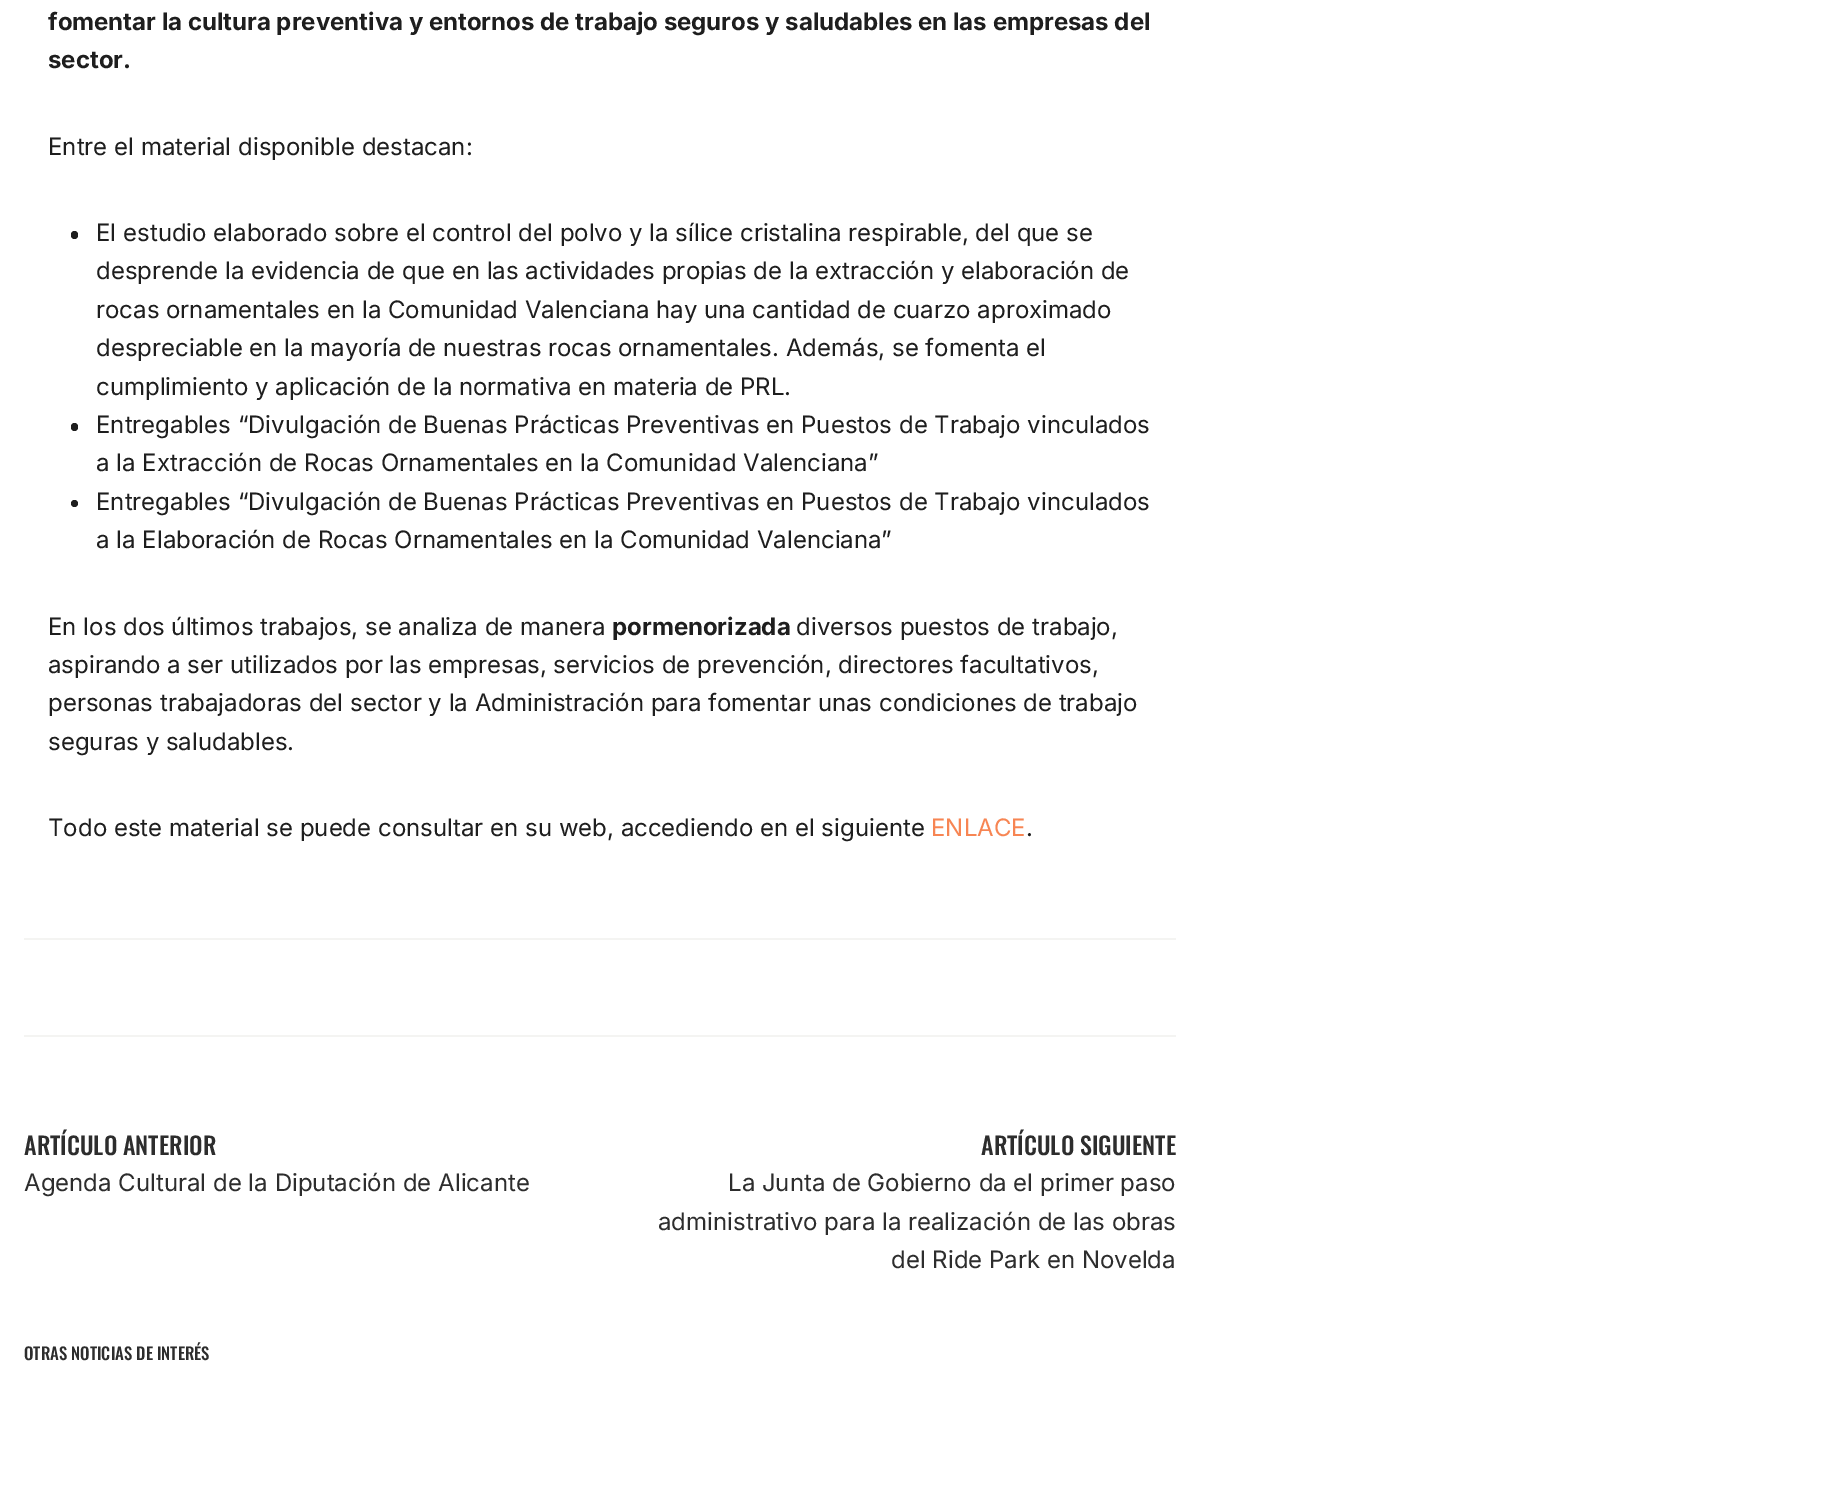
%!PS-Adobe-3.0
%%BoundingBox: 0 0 1824 1497
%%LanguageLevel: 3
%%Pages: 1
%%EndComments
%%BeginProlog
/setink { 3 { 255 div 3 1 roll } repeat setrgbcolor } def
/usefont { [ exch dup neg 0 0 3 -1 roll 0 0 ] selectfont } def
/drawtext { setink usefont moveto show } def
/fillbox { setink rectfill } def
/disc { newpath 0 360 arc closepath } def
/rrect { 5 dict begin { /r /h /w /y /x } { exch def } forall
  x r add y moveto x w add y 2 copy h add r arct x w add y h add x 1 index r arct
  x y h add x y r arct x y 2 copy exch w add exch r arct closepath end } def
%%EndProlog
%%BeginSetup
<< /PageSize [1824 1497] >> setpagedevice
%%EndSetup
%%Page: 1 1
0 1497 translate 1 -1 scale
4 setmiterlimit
0 0 1824 1497 255 255 255 fillbox
(fomentar la cultura preventiva y entornos de trabajo seguros y saludables en las empresas del) 48 30 /Inter-Bold 24 30 30 30 drawtext
(sector.) 48 68 /Inter-Bold 24 30 30 30 drawtext
(Entre el material disponible destacan:) 48 155 /Inter-Regular 24 30 30 30 drawtext
71 231 7 8 3.5 rrect fill
(El estudio elaborado sobre el control del polvo y la sílice cristalina respirable, del que se) 96 241 /Inter-Regular 24 30 30 30 drawtext
(desprende la evidencia de que en las actividades propias de la extracción y elaboración de) 96 279 /Inter-Regular 24 30 30 30 drawtext
(rocas ornamentales en la Comunidad Valenciana hay una cantidad de cuarzo aproximado) 96 318 /Inter-Regular 24 30 30 30 drawtext
(despreciable en la mayoría de nuestras rocas ornamentales. Además, se fomenta el) 96 356 /Inter-Regular 24 30 30 30 drawtext
(cumplimiento y aplicación de la normativa en materia de PRL.) 96 395 /Inter-Regular 24 30 30 30 drawtext
71 423 7 8 3.5 rrect fill
(Entregables “Divulgación de Buenas Prácticas Preventivas en Puestos de Trabajo vinculados) 96 433 /Inter-Regular 24 30 30 30 drawtext
(a la Extracción de Rocas Ornamentales en la Comunidad Valenciana”) 96 471 /Inter-Regular 24 30 30 30 drawtext
74.5 503.5 3.5 disc fill
(Entregables “Divulgación de Buenas Prácticas Preventivas en Puestos de Trabajo vinculados) 96 510 /Inter-Regular 24 30 30 30 drawtext
(a la Elaboración de Rocas Ornamentales en la Comunidad Valenciana”) 96 548 /Inter-Regular 24 30 30 30 drawtext
(En los dos últimos trabajos, se analiza de manera) 48 635 /Inter-Regular 24 30 30 30 drawtext
(pormenorizada) 612 635 /Inter-Bold 24 30 30 30 drawtext
(diversos puestos de trabajo,) 796 635 /Inter-Regular 24 30 30 30 drawtext
(aspirando a ser utilizados por las empresas, servicios de prevención, directores facultativos,) 48 673 /Inter-Regular 24 30 30 30 drawtext
(personas trabajadoras del sector y la Administración para fomentar unas condiciones de trabajo) 48 711 /Inter-Regular 24 30 30 30 drawtext
(seguras y saludables.) 48 750 /Inter-Regular 24 30 30 30 drawtext
(Todo este material se puede consultar en su web, accediendo en el siguiente) 48 836 /Inter-Regular 24 30 30 30 drawtext
(ENLACE) 931 836 /Inter-Regular 24 247 133 83 drawtext
(.) 1026 836 /Inter-Regular 24 30 30 30 drawtext
24 938 1152 2 244 244 242 fillbox
24 1035 1152 2 244 244 242 fillbox
(ARTÍCULO ANTERIOR) 24 1155 /Oswald-Medium 24 45 45 45 drawtext
(Agenda Cultural de la Diputación de Alicante) 24 1191 /Inter-Regular 24 45 45 45 drawtext
(ARTÍCULO SIGUIENTE) 981 1155 /Oswald-Medium 24 45 45 45 drawtext
(La Junta de Gobierno da el primer paso) 728 1191 /Inter-Regular 24 45 45 45 drawtext
(administrativo para la realización de las obras) 658 1230 /Inter-Regular 24 45 45 45 drawtext
(del Ride Park en Novelda) 891 1268 /Inter-Regular 24 45 45 45 drawtext
(OTRAS NOTICIAS DE INTERÉS) 24 1360 /Oswald-Medium 16.75 45 45 45 drawtext
showpage
%%EOF
